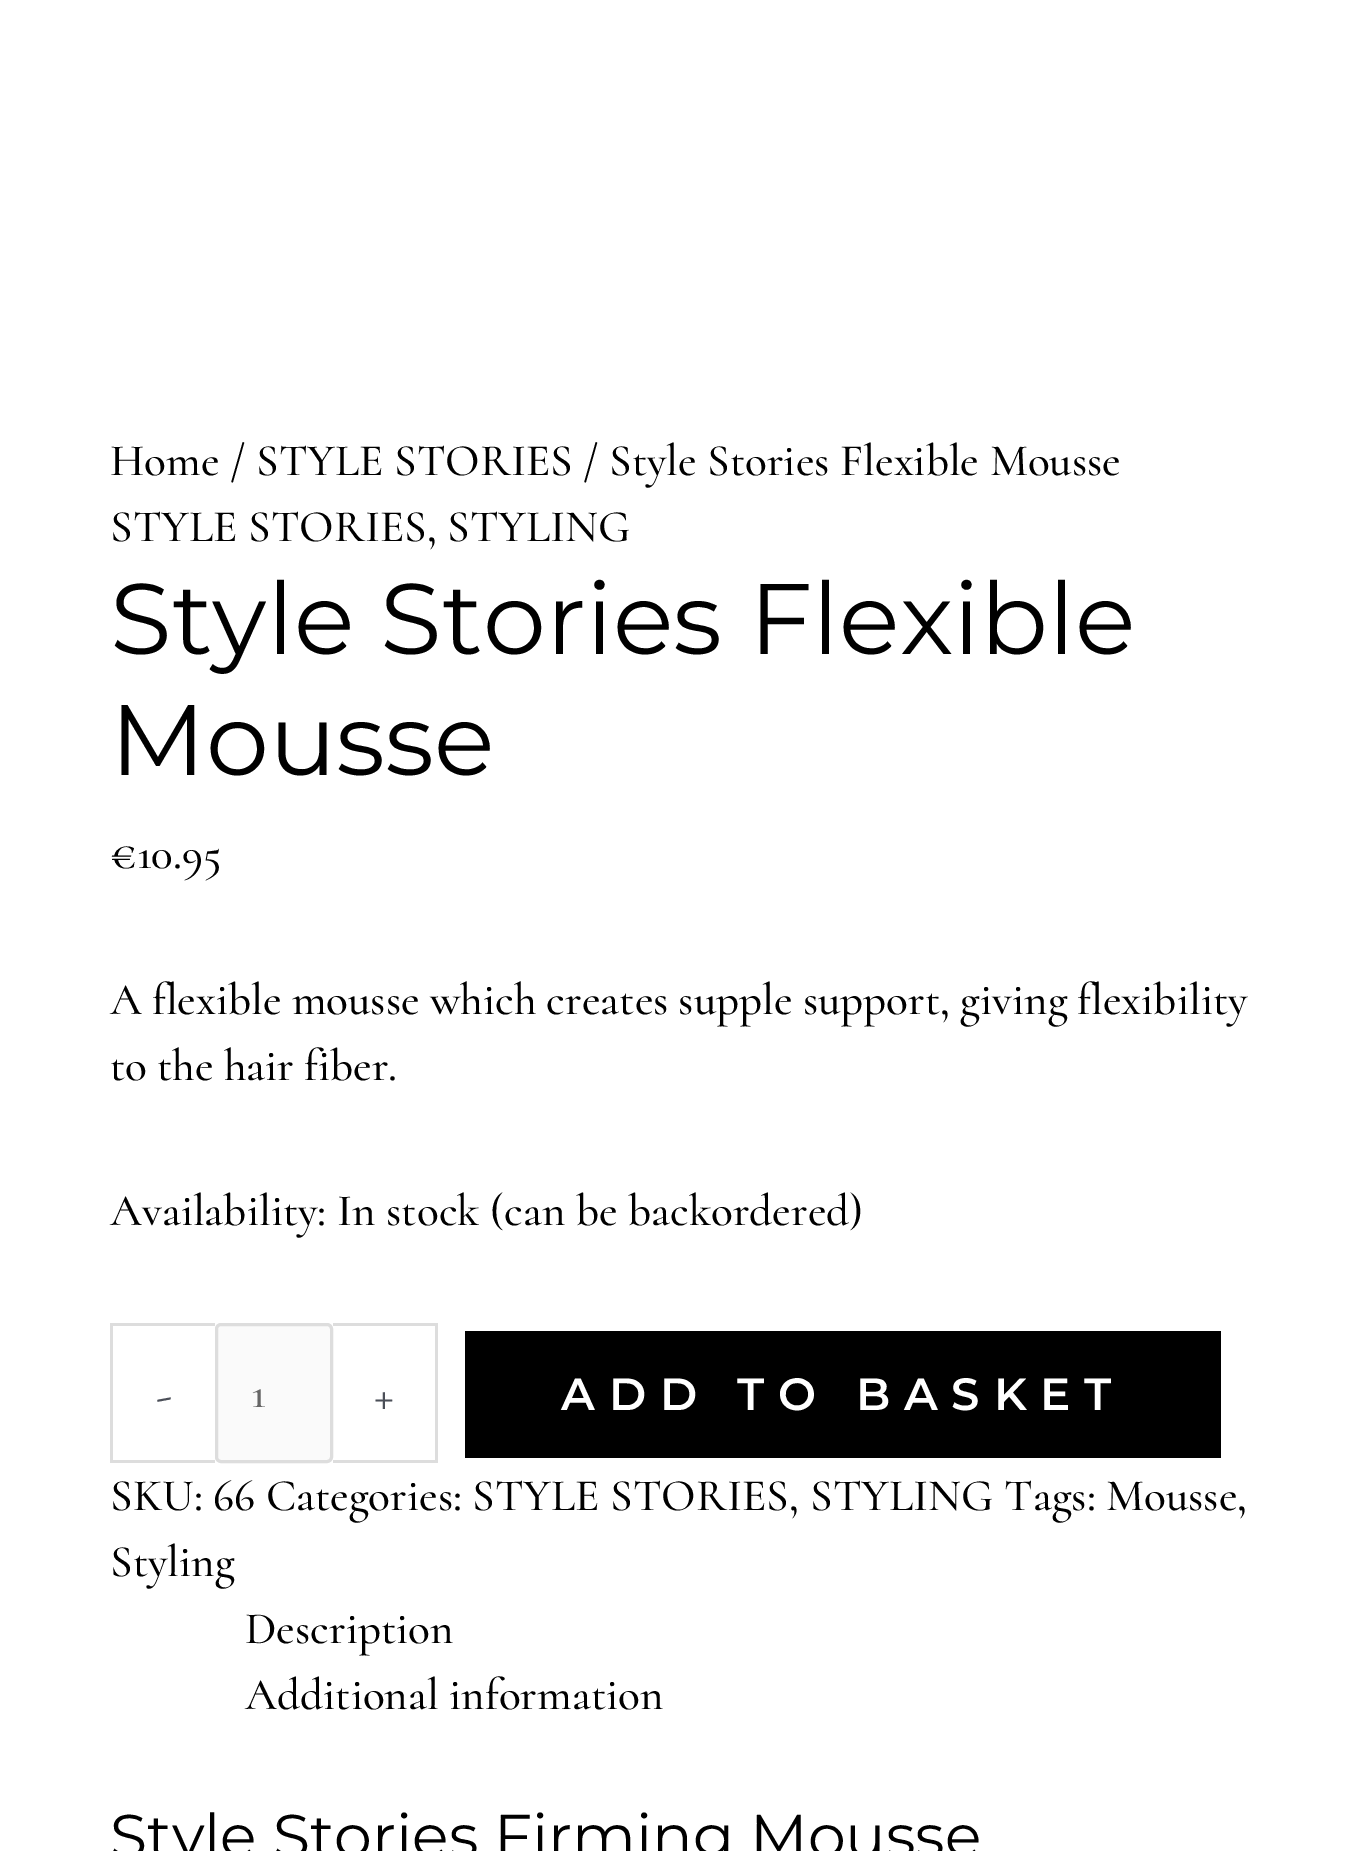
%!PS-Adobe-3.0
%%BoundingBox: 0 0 1366 1851
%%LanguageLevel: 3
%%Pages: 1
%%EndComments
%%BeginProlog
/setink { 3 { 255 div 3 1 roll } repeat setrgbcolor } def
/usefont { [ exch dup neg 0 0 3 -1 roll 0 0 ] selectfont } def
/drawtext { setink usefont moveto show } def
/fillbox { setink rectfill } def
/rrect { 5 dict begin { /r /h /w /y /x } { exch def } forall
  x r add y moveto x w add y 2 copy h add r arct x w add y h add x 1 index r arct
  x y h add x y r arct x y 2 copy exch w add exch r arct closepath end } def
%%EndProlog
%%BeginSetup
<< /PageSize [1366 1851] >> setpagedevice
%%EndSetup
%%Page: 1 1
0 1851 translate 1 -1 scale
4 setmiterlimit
0 0 1366 1851 255 255 255 fillbox
(Home) 110 475 /Cormorant-Light 45.15 0 0 0 drawtext
(/) 230 475 /Cormorant-Light 45.15 0 0 0 drawtext
(STYLE STORIES) 256 475 /Cormorant-Light 45.15 0 0 0 drawtext
(/ Style Stories Flexible Mousse) 583 475 /Cormorant-Light 45.15 0 0 0 drawtext
(STYLE STORIES) 110 541 /Cormorant-Light 45.15 0 0 0 drawtext
(STYLING) 447 541 /Cormorant-Light 45.15 0 0 0 drawtext
(,) 427 541 /Cormorant-Light 45.15 0 0 0 drawtext
(Style Stories Flexible) 110 654 /Montserrat-Regular 100.25 0 0 0 drawtext
(Mousse) 110 775 /Montserrat-Regular 100.25 0 0 0 drawtext
(€10.95) 110 868 /Cormorant-Light 45.15 0 0 0 drawtext
110 1014 moveto -0.5 0 32 (A flexible mousse which creates supple support, giving flexibility) widthshow
110 1080 moveto -0.5 0 32 (to the hair fiber.) widthshow
(Availability: In stock \(can be backordered\)) 110 1225 /Cormorant-Light 45.15 0 0 0 drawtext
110 1323 105 3 221 221 221 fillbox
110 1460 105 3 221 221 221 fillbox
110 1323 3 140 221 221 221 fillbox
(-) 156 1410 /Cormorant-Light 50 75 79 88 drawtext
250 250 250 setink
216.5 1324.5 115 137 4.5 rrect gsave fill grestore
221 221 221 setink
3 setlinewidth
stroke
(1) 251 1407 /Cormorant-Light 45.15 102 102 102 drawtext
333 1323 104 3 221 221 221 fillbox
435 1323 3 140 221 221 221 fillbox
333 1460 104 3 221 221 221 fillbox
(+) 374 1410 /Cormorant-Light 50 75 79 88 drawtext
465 1331 756 127 0 0 0 fillbox
/Montserrat-SemiBold 45.15 usefont
255 255 255 setink
561 1410 moveto 13.75 0 (ADD TO BASKET) ashow
(SKU: 66 Categories:) 110 1510 /Cormorant-Light 45.15 0 0 0 drawtext
(STYLE STORIES) 472 1510 /Cormorant-Light 45.15 0 0 0 drawtext
(STYLING) 810 1510 /Cormorant-Light 45.15 0 0 0 drawtext
(Tags:) 1004 1510 /Cormorant-Light 45.15 0 0 0 drawtext
(Mousse) 1106 1510 /Cormorant-Light 45.15 0 0 0 drawtext
(,) 789 1510 /Cormorant-Light 45.15 0 0 0 drawtext
(,) 1237 1510 /Cormorant-Light 45.15 0 0 0 drawtext
(Styling) 110 1576 /Cormorant-Light 45.15 0 0 0 drawtext
(Description) 245 1643 /Cormorant-Light 45.15 0 0 0 drawtext
(Additional information) 245 1709 /Cormorant-Light 45.15 0 0 0 drawtext
(Style Stories Firming Mousse) 110 1857 /Montserrat-Regular 60.25 0 0 0 drawtext
showpage
%%EOF
